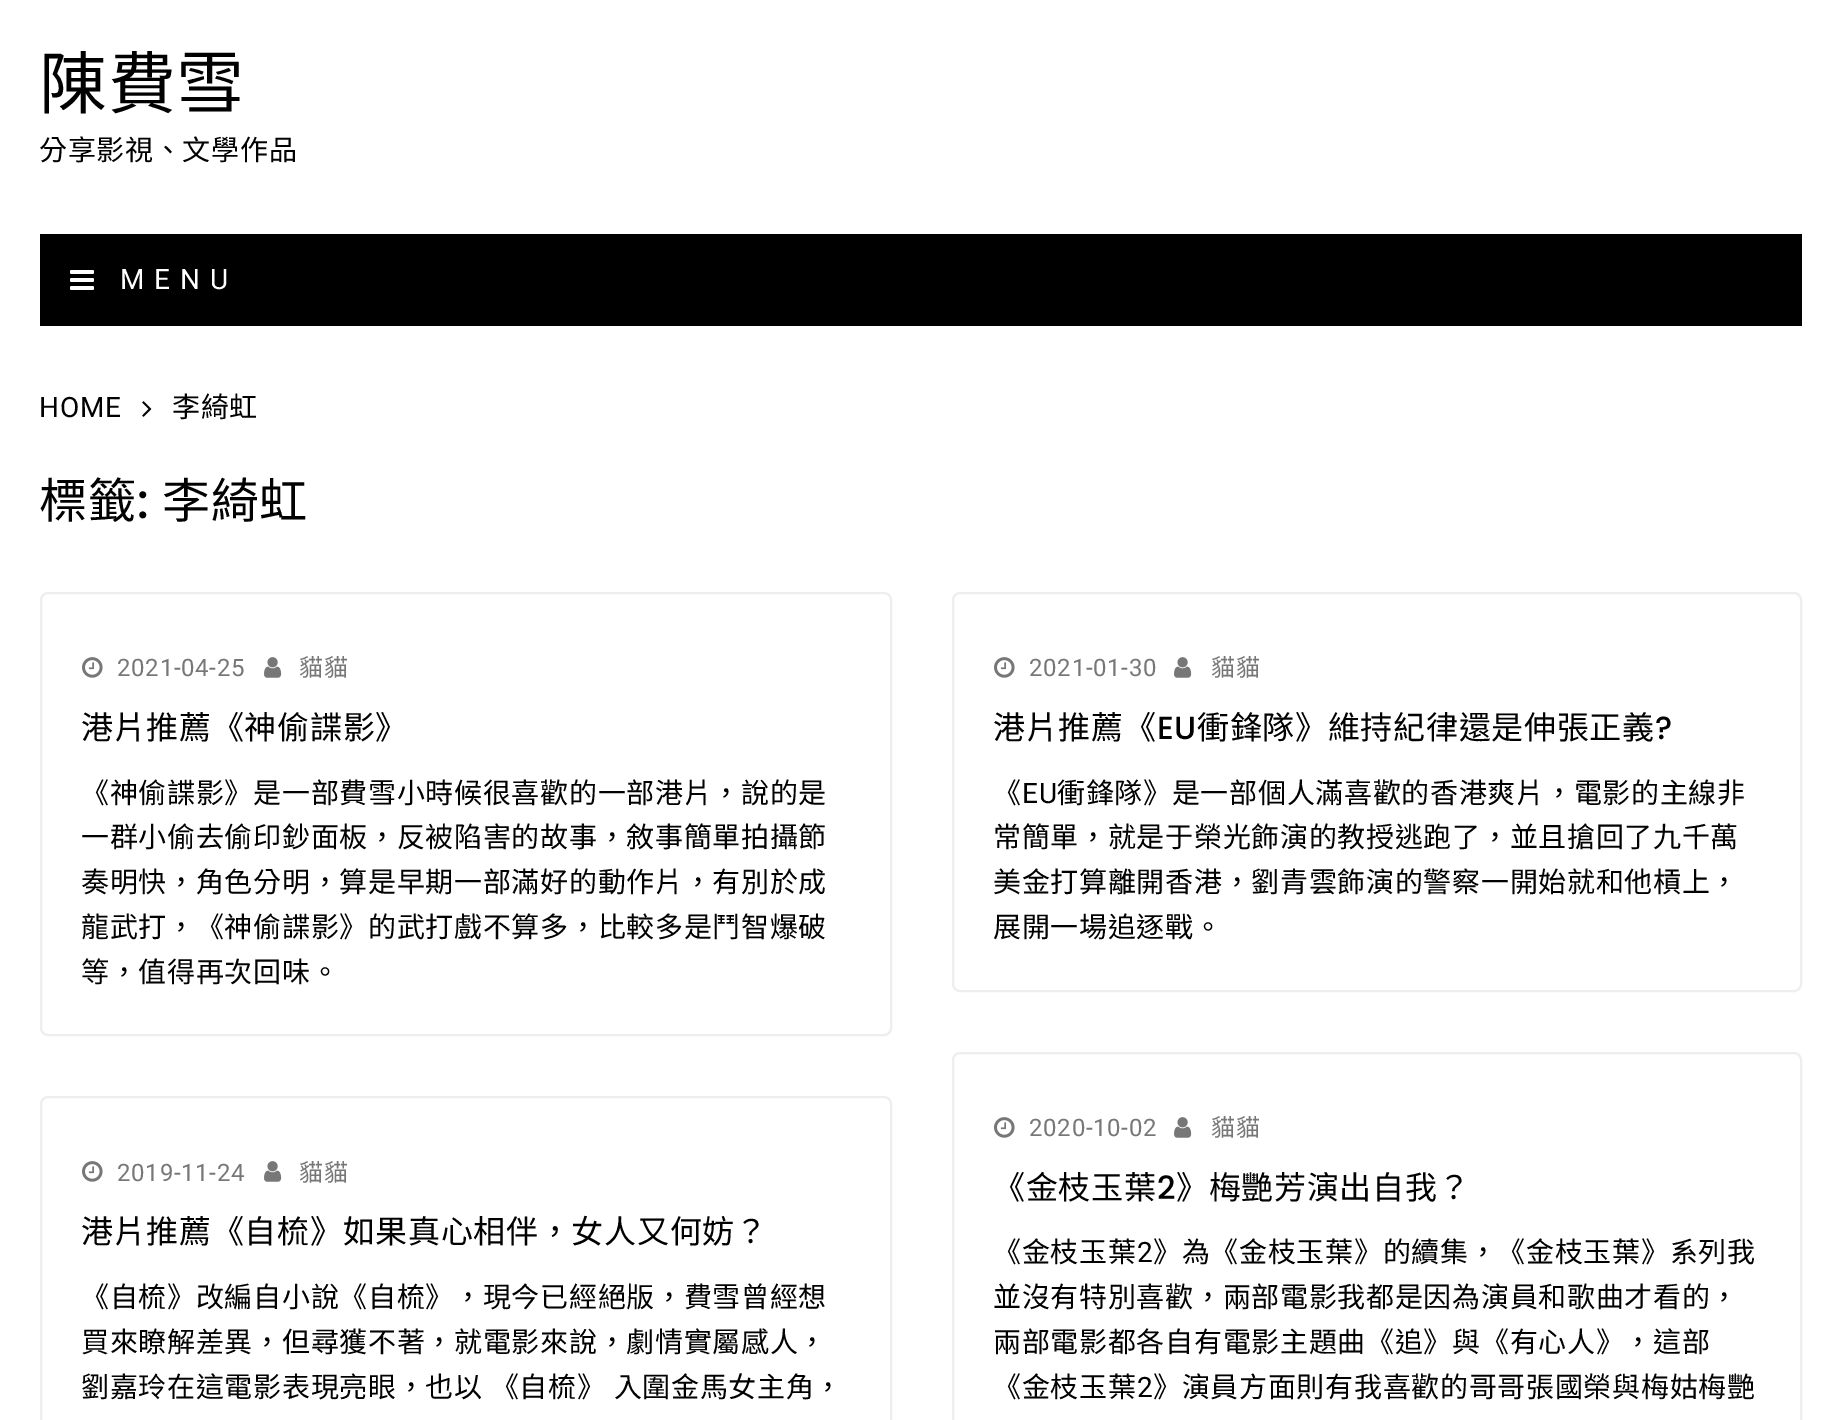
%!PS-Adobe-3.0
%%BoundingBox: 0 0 1842 1420
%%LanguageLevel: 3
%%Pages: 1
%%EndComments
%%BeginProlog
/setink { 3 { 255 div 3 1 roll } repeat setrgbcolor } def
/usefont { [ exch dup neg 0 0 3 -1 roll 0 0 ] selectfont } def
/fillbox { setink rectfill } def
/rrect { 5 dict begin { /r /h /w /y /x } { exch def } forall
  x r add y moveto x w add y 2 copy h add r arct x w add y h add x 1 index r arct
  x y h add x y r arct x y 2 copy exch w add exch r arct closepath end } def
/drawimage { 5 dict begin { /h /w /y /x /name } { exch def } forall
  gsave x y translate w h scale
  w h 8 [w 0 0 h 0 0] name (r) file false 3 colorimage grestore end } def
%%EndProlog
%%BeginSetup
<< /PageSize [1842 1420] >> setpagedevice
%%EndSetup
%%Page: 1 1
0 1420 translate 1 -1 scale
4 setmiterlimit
0 0 1842 1420 255 255 255 fillbox
/NotoSansCJKTC-Regular 68 usefont
1 1 1 setink
39 108 moveto 0.7 0 (陳費雪) ashow
/NotoSansCJKTC-Regular 28 usefont
39 160 moveto 0.7 0 (分享影視、文學作品) ashow
40 234 1762 92 0 0 0 fillbox
(assets/img1.rgb) 70 270 24 20 drawimage
/Roboto-Regular 28 usefont
255 255 255 setink
120 289 moveto 10 0 (MENU) ashow
1 1 1 setink
39 417 moveto 0.7 0 (HOME) ashow
(assets/img2.rgb) 142 401 10 16 drawimage
/NotoSansCJKTC-Regular 28 usefont
172 417 moveto 0.7 0 (李綺虹) ashow
/NotoSansCJKTC-Regular 48 usefont
39 518 moveto 0.7 0 (標籤) ashow
/Poppins-Medium 48 usefont
137 518 moveto 0.7 0 (:) ashow
/NotoSansCJKTC-Regular 48 usefont
162 518 moveto 0.7 0 (李綺虹) ashow
238 238 238 setink
2 setlinewidth
41 593 850 442 7 rrect stroke
(assets/img3.rgb) 82 657 21 21 drawimage
/Roboto-Regular 24 usefont
119 119 119 setink
117 676 moveto 0.7 0 (2021-04-25) ashow
(assets/img4.rgb) 264 657 18 21 drawimage
/NotoSansCJKTC-Regular 24 usefont
299 676 moveto 0.7 0 (貓貓) ashow
/NotoSansCJKTC-Regular 32 usefont
1 1 1 setink
81 739 moveto 0.7 0 (港片推薦《神偷諜影》) ashow
/NotoSansCJKTC-Regular 28 usefont
81 803 moveto 0.7 0 (《神偷諜影》是一部費雪小時候很喜歡的一部港片，說的是) ashow
81 847 moveto 0.7 0 (一群小偷去偷印鈔面板，反被陷害的故事，敘事簡單拍攝節) ashow
81 892 moveto 0.7 0 (奏明快，角色分明，算是早期一部滿好的動作片，有別於成) ashow
81 937 moveto 0.7 0 (龍武打，《神偷諜影》的武打戲不算多，比較多是鬥智爆破) ashow
81 982 moveto 0.7 0 (等，值得再次回味。) ashow
238 238 238 setink
953 593 848 398 7 rrect stroke
(assets/img3.rgb) 994 657 21 21 drawimage
/Roboto-Regular 24 usefont
119 119 119 setink
1029 676 moveto 0.7 0 (2021-01-30) ashow
(assets/img4.rgb) 1174 657 18 21 drawimage
/NotoSansCJKTC-Regular 24 usefont
1211 676 moveto 0.7 0 (貓貓) ashow
/NotoSansCJKTC-Regular 32 usefont
1 1 1 setink
993 739 moveto 0.7 0 (港片推薦《) ashow
/Poppins-Medium 32 usefont
1157 739 moveto 0.7 0 (EU) ashow
/NotoSansCJKTC-Regular 32 usefont
1197 739 moveto 0.7 0 (衝鋒隊》維持紀律還是伸張正義) ashow
/Poppins-Medium 32 usefont
1655 739 moveto 0.7 0 (?) ashow
/NotoSansCJKTC-Regular 28 usefont
993 803 moveto 0.7 0 (《) ashow
/Roboto-Regular 28 usefont
1022 803 moveto 0.7 0 (EU) ashow
/NotoSansCJKTC-Regular 28 usefont
1057 803 moveto 0.7 0 (衝鋒隊》是一部個人滿喜歡的香港爽片，電影的主線非) ashow
993 847 moveto 0.7 0 (常簡單，就是于榮光飾演的教授逃跑了，並且搶回了九千萬) ashow
993 892 moveto 0.7 0 (美金打算離開香港，劉青雲飾演的警察一開始就和他槓上，) ashow
993 937 moveto 0.7 0 (展開一場追逐戰。) ashow
238 238 238 setink
41 1097 850 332 7 rrect stroke
(assets/img3.rgb) 82 1161 21 21 drawimage
/Roboto-Regular 24 usefont
119 119 119 setink
117 1181 moveto 0.7 0 (2019-11-24) ashow
(assets/img4.rgb) 264 1161 18 21 drawimage
/NotoSansCJKTC-Regular 24 usefont
299 1181 moveto 0.7 0 (貓貓) ashow
/NotoSansCJKTC-Regular 32 usefont
1 1 1 setink
81 1243 moveto 0.7 0 (港片推薦《自梳》如果真心相伴，女人又何妨？) ashow
/NotoSansCJKTC-Regular 28 usefont
81 1307 moveto 0.7 0 (《自梳》改編自小說《自梳》，現今已經絕版，費雪曾經想) ashow
81 1352 moveto 0.7 0 (買來瞭解差異，但尋獲不著，就電影來說，劇情實屬感人，) ashow
81 1397 moveto 1 0 32 0.7 0 (劉嘉玲在這電影表現亮眼，也以 《自梳》 入圍金馬女主角，) awidthshow
238 238 238 setink
953 1053 848 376 7 rrect stroke
(assets/img3.rgb) 994 1117 21 21 drawimage
/Roboto-Regular 24 usefont
119 119 119 setink
1029 1136 moveto 0.7 0 (2020-10-02) ashow
(assets/img4.rgb) 1174 1117 18 21 drawimage
/NotoSansCJKTC-Regular 24 usefont
1211 1136 moveto 0.7 0 (貓貓) ashow
/NotoSansCJKTC-Regular 32 usefont
1 1 1 setink
993 1199 moveto 0.7 0 (《金枝玉葉) ashow
/Poppins-Medium 32 usefont
1157 1199 moveto 0.7 0 (2) ashow
/NotoSansCJKTC-Regular 32 usefont
1176 1199 moveto 0.7 0 (》梅艷芳演出自我？) ashow
/NotoSansCJKTC-Regular 28 usefont
993 1262 moveto 0.7 0 (《金枝玉葉) ashow
/Roboto-Regular 28 usefont
1137 1262 moveto 0.7 0 (2) ashow
/NotoSansCJKTC-Regular 28 usefont
1153 1262 moveto 0.7 0 (》為《金枝玉葉》的續集，《金枝玉葉》系列我) ashow
993 1307 moveto 0.7 0 (並沒有特別喜歡，兩部電影我都是因為演員和歌曲才看的，) ashow
993 1352 moveto 0.7 0 (兩部電影都各自有電影主題曲《追》與《有心人》，這部) ashow
993 1397 moveto 0.7 0 (《金枝玉葉) ashow
/Roboto-Regular 28 usefont
1137 1397 moveto 0.7 0 (2) ashow
/NotoSansCJKTC-Regular 28 usefont
1153 1397 moveto 0.7 0 (》演員方面則有我喜歡的哥哥張國榮與梅姑梅艷) ashow
showpage
%%EOF
